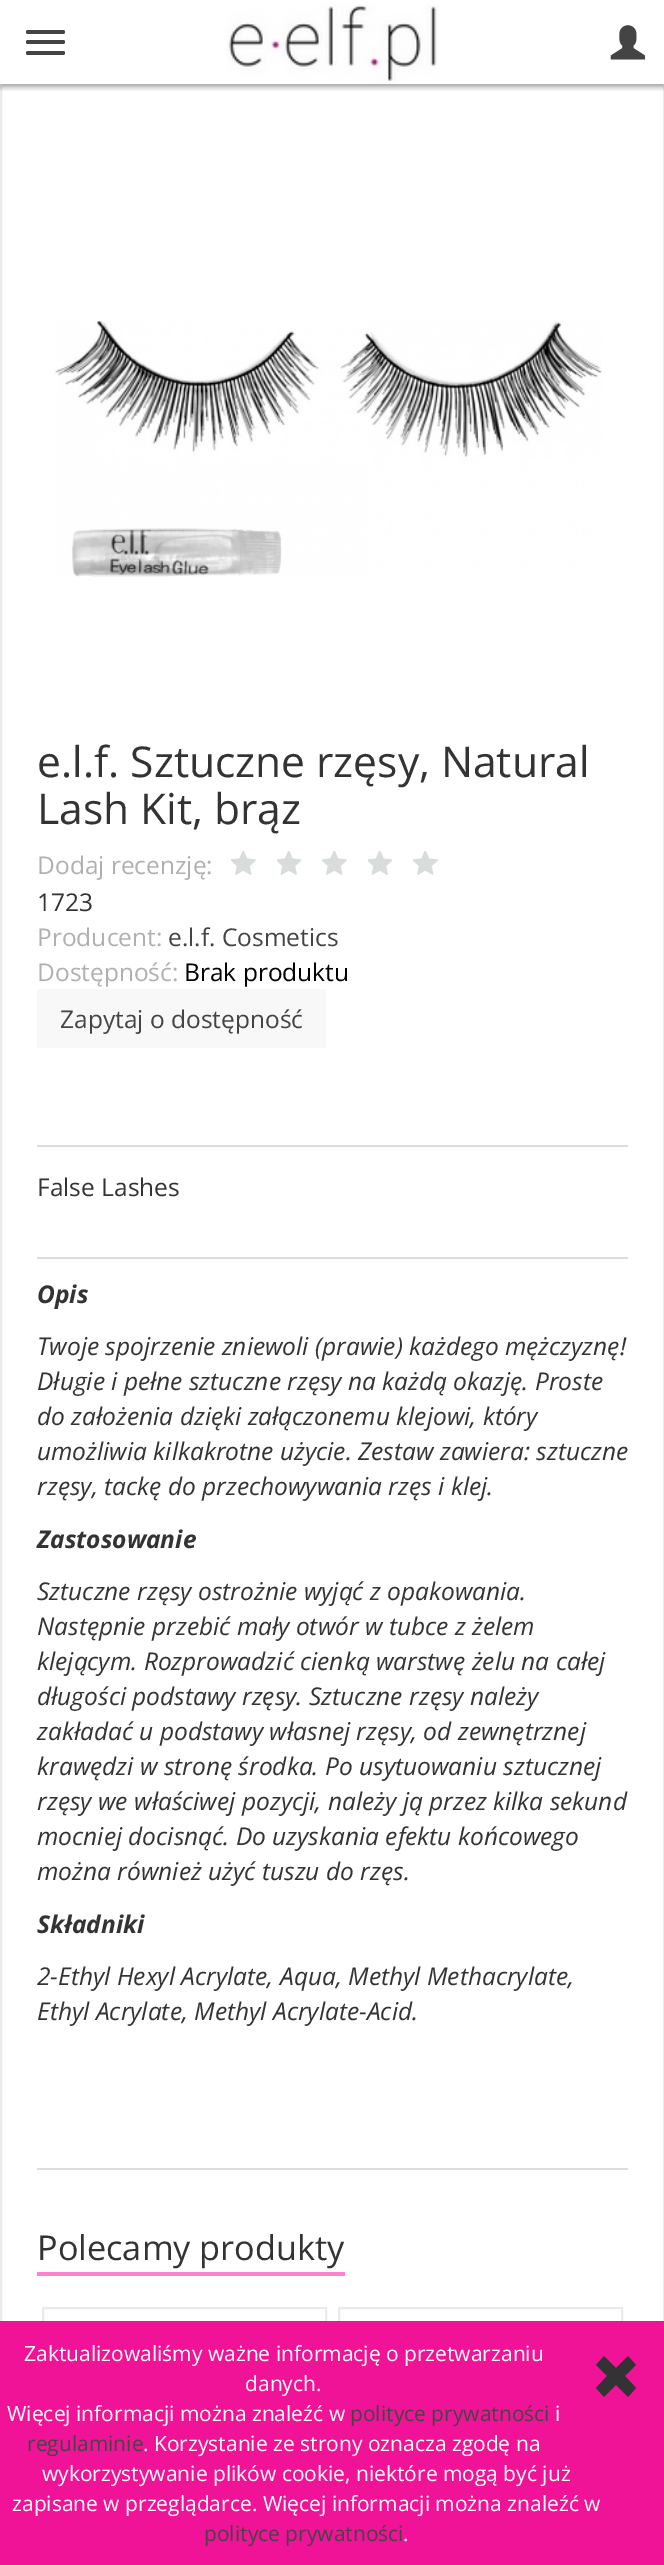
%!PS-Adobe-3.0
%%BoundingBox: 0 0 664 2565
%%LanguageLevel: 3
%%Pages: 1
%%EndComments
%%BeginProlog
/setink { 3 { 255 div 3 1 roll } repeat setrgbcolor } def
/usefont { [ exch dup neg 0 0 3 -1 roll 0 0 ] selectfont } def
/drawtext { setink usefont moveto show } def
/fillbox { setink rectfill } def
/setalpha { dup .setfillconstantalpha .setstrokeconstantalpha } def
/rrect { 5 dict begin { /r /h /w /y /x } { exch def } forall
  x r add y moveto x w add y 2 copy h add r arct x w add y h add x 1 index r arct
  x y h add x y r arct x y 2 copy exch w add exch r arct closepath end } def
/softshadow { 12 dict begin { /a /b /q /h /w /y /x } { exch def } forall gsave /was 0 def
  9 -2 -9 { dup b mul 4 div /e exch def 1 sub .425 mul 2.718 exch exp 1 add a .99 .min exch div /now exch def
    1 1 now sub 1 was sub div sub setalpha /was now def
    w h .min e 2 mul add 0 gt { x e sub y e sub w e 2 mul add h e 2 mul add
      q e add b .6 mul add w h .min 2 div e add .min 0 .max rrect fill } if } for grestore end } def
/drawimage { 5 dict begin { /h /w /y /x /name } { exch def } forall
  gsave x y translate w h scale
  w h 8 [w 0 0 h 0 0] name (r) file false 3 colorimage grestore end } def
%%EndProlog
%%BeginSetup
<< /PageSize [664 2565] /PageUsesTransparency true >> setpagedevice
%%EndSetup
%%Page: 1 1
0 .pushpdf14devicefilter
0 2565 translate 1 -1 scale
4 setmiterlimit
0 0 664 2565 255 255 255 fillbox
234 234 234 setink
2 setlinewidth
1 85 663 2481 rectstroke
gsave
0 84 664 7 rectclip
0 0 0 setink
0 4 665 84 0 2.5 0.25 softshadow
grestore
68 68 68 setink
26 30 39 4 2 rrect fill
26 40 39 4 2 rrect fill
26 51 39 4 2 rrect fill
(assets/img1.rgb) 226 4 213 80 drawimage
(assets/img2.rgb) 610 25 36 35 drawimage
(assets/img3.rgb) 55 321 547 256 drawimage
(e.l.f. Sztuczne rzęsy, Natural) 37 777 /OpenSans-Regular 42.5 51 51 51 drawtext
(Lash Kit, brąz) 37 824 /OpenSans-Regular 42.5 51 51 51 drawtext
(Dodaj recenzję:) 37 874 /OpenSans-Regular 24.5 176 176 176 drawtext
(assets/img4.rgb) 231 851 25 24 drawimage
(assets/img5.rgb) 277 851 24 24 drawimage
(assets/img4.rgb) 322 851 25 24 drawimage
(assets/img5.rgb) 368 851 24 24 drawimage
(assets/img4.rgb) 413 851 25 24 drawimage
(1723) 37 911 /OpenSans-Regular 24.5 51 51 51 drawtext
(Producent:) 37 946 /OpenSans-Regular 24.5 176 176 176 drawtext
(e.l.f. Cosmetics) 168 946 /OpenSans-Regular 24.5 68 68 68 drawtext
(Dostępność:) 37 981 /OpenSans-Regular 24.5 176 176 176 drawtext
(Brak produktu) 184 981 /OpenSans-Regular 24.5 0 0 0 drawtext
37 989 289 59 248 248 248 fillbox
(Zapytaj o dostępność) 60 1028 /OpenSans-Regular 24.5 68 68 68 drawtext
37 1145 591 2 221 221 221 fillbox
(False Lashes) 37 1196 /OpenSans-Regular 24.5 51 51 51 drawtext
37 1257 591 2 221 221 221 fillbox
(Opis) 37 1303 /OpenSans-BoldItalic 24.5 51 51 51 drawtext
(Twoje spojrzenie zniewoli \(prawie\) każdego mężczyznę!) 37 1355 /OpenSans-Italic 24.5 51 51 51 drawtext
(Długie i pełne sztuczne rzęsy na każdą okazję. Proste) 37 1390 /OpenSans-Italic 24.5 51 51 51 drawtext
(do założenia dzięki załączonemu klejowi, który) 37 1425 /OpenSans-Italic 24.5 51 51 51 drawtext
(umożliwia kilkakrotne użycie. Zestaw zawiera: sztuczne) 37 1460 /OpenSans-Italic 24.5 51 51 51 drawtext
(rzęsy, tackę do przechowywania rzęs i klej.) 37 1495 /OpenSans-Italic 24.5 51 51 51 drawtext
(Zastosowanie) 37 1548 /OpenSans-BoldItalic 24.5 51 51 51 drawtext
(Sztuczne rzęsy ostrożnie wyjąć z opakowania.) 37 1600 /OpenSans-Italic 24.5 51 51 51 drawtext
(Następnie przebić mały otwór w tubce z żelem) 37 1635 /OpenSans-Italic 24.5 51 51 51 drawtext
(klejącym. Rozprowadzić cienką warstwę żelu na całej) 37 1670 /OpenSans-Italic 24.5 51 51 51 drawtext
(długości podstawy rzęsy. Sztuczne rzęsy należy) 37 1705 /OpenSans-Italic 24.5 51 51 51 drawtext
(zakładać u podstawy własnej rzęsy, od zewnętrznej) 37 1740 /OpenSans-Italic 24.5 51 51 51 drawtext
(krawędzi w stronę środka. Po usytuowaniu sztucznej) 37 1775 /OpenSans-Italic 24.5 51 51 51 drawtext
(rzęsy we właściwej pozycji, należy ją przez kilka sekund) 37 1810 /OpenSans-Italic 24.5 51 51 51 drawtext
(mocniej docisnąć. Do uzyskania efektu końcowego) 37 1845 /OpenSans-Italic 24.5 51 51 51 drawtext
(można również użyć tuszu do rzęs.) 37 1880 /OpenSans-Italic 24.5 51 51 51 drawtext
(Składniki) 37 1933 /OpenSans-BoldItalic 24.5 51 51 51 drawtext
(2-Ethyl Hexyl Acrylate, Aqua, Methyl Methacrylate,) 37 1985 /OpenSans-Italic 24.5 51 51 51 drawtext
(Ethyl Acrylate, Methyl Acrylate-Acid.) 37 2020 /OpenSans-Italic 24.5 51 51 51 drawtext
37 2168 591 2 221 221 221 fillbox
37 2272 308 4 255 130 207 fillbox
(Polecamy produkty) 37 2260 /OpenSans-Regular 34.25 51 51 51 drawtext
234 234 234 setink
43 2308 283 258 rectstroke
339 2308 283 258 rectstroke
0 2321 664 244 240 19 152 fillbox
(Zaktualizowaliśmy ważne informację o przetwarzaniu) 24 2361 /OpenSans-Regular 21 255 255 255 drawtext
(danych.) 245 2391 /OpenSans-Regular 21 255 255 255 drawtext
(Więcej informacji można znaleźć w) 7 2421 /OpenSans-Regular 21 255 255 255 drawtext
(polityce prywatności) 350 2421 /OpenSans-Regular 21 68 68 68 drawtext
(i) 555 2421 /OpenSans-Regular 21 255 255 255 drawtext
(regulaminie) 27 2451 /OpenSans-Regular 21 68 68 68 drawtext
(. Korzystanie ze strony oznacza zgodę na) 143 2451 /OpenSans-Regular 21 255 255 255 drawtext
(wykorzystywanie plików cookie, niektóre mogą być już) 42 2481 /OpenSans-Regular 21 255 255 255 drawtext
(zapisane w przeglądarce. Więcej informacji można znaleźć w) 12 2511 /OpenSans-Regular 21 255 255 255 drawtext
(polityce prywatności) 204 2541 /OpenSans-Regular 21 68 68 68 drawtext
(.) 403 2541 /OpenSans-Regular 21 255 255 255 drawtext
51 51 51 setink
596 2388 moveto 607 2376 lineto 596 2365 lineto 604 2356 lineto 616 2368 lineto 628 2356 lineto 636 2365 lineto 625 2376 lineto 636 2388 lineto 628 2397 lineto 616 2385 lineto 604 2397 lineto closepath fill
.poppdf14devicefilter showpage
%%EOF
